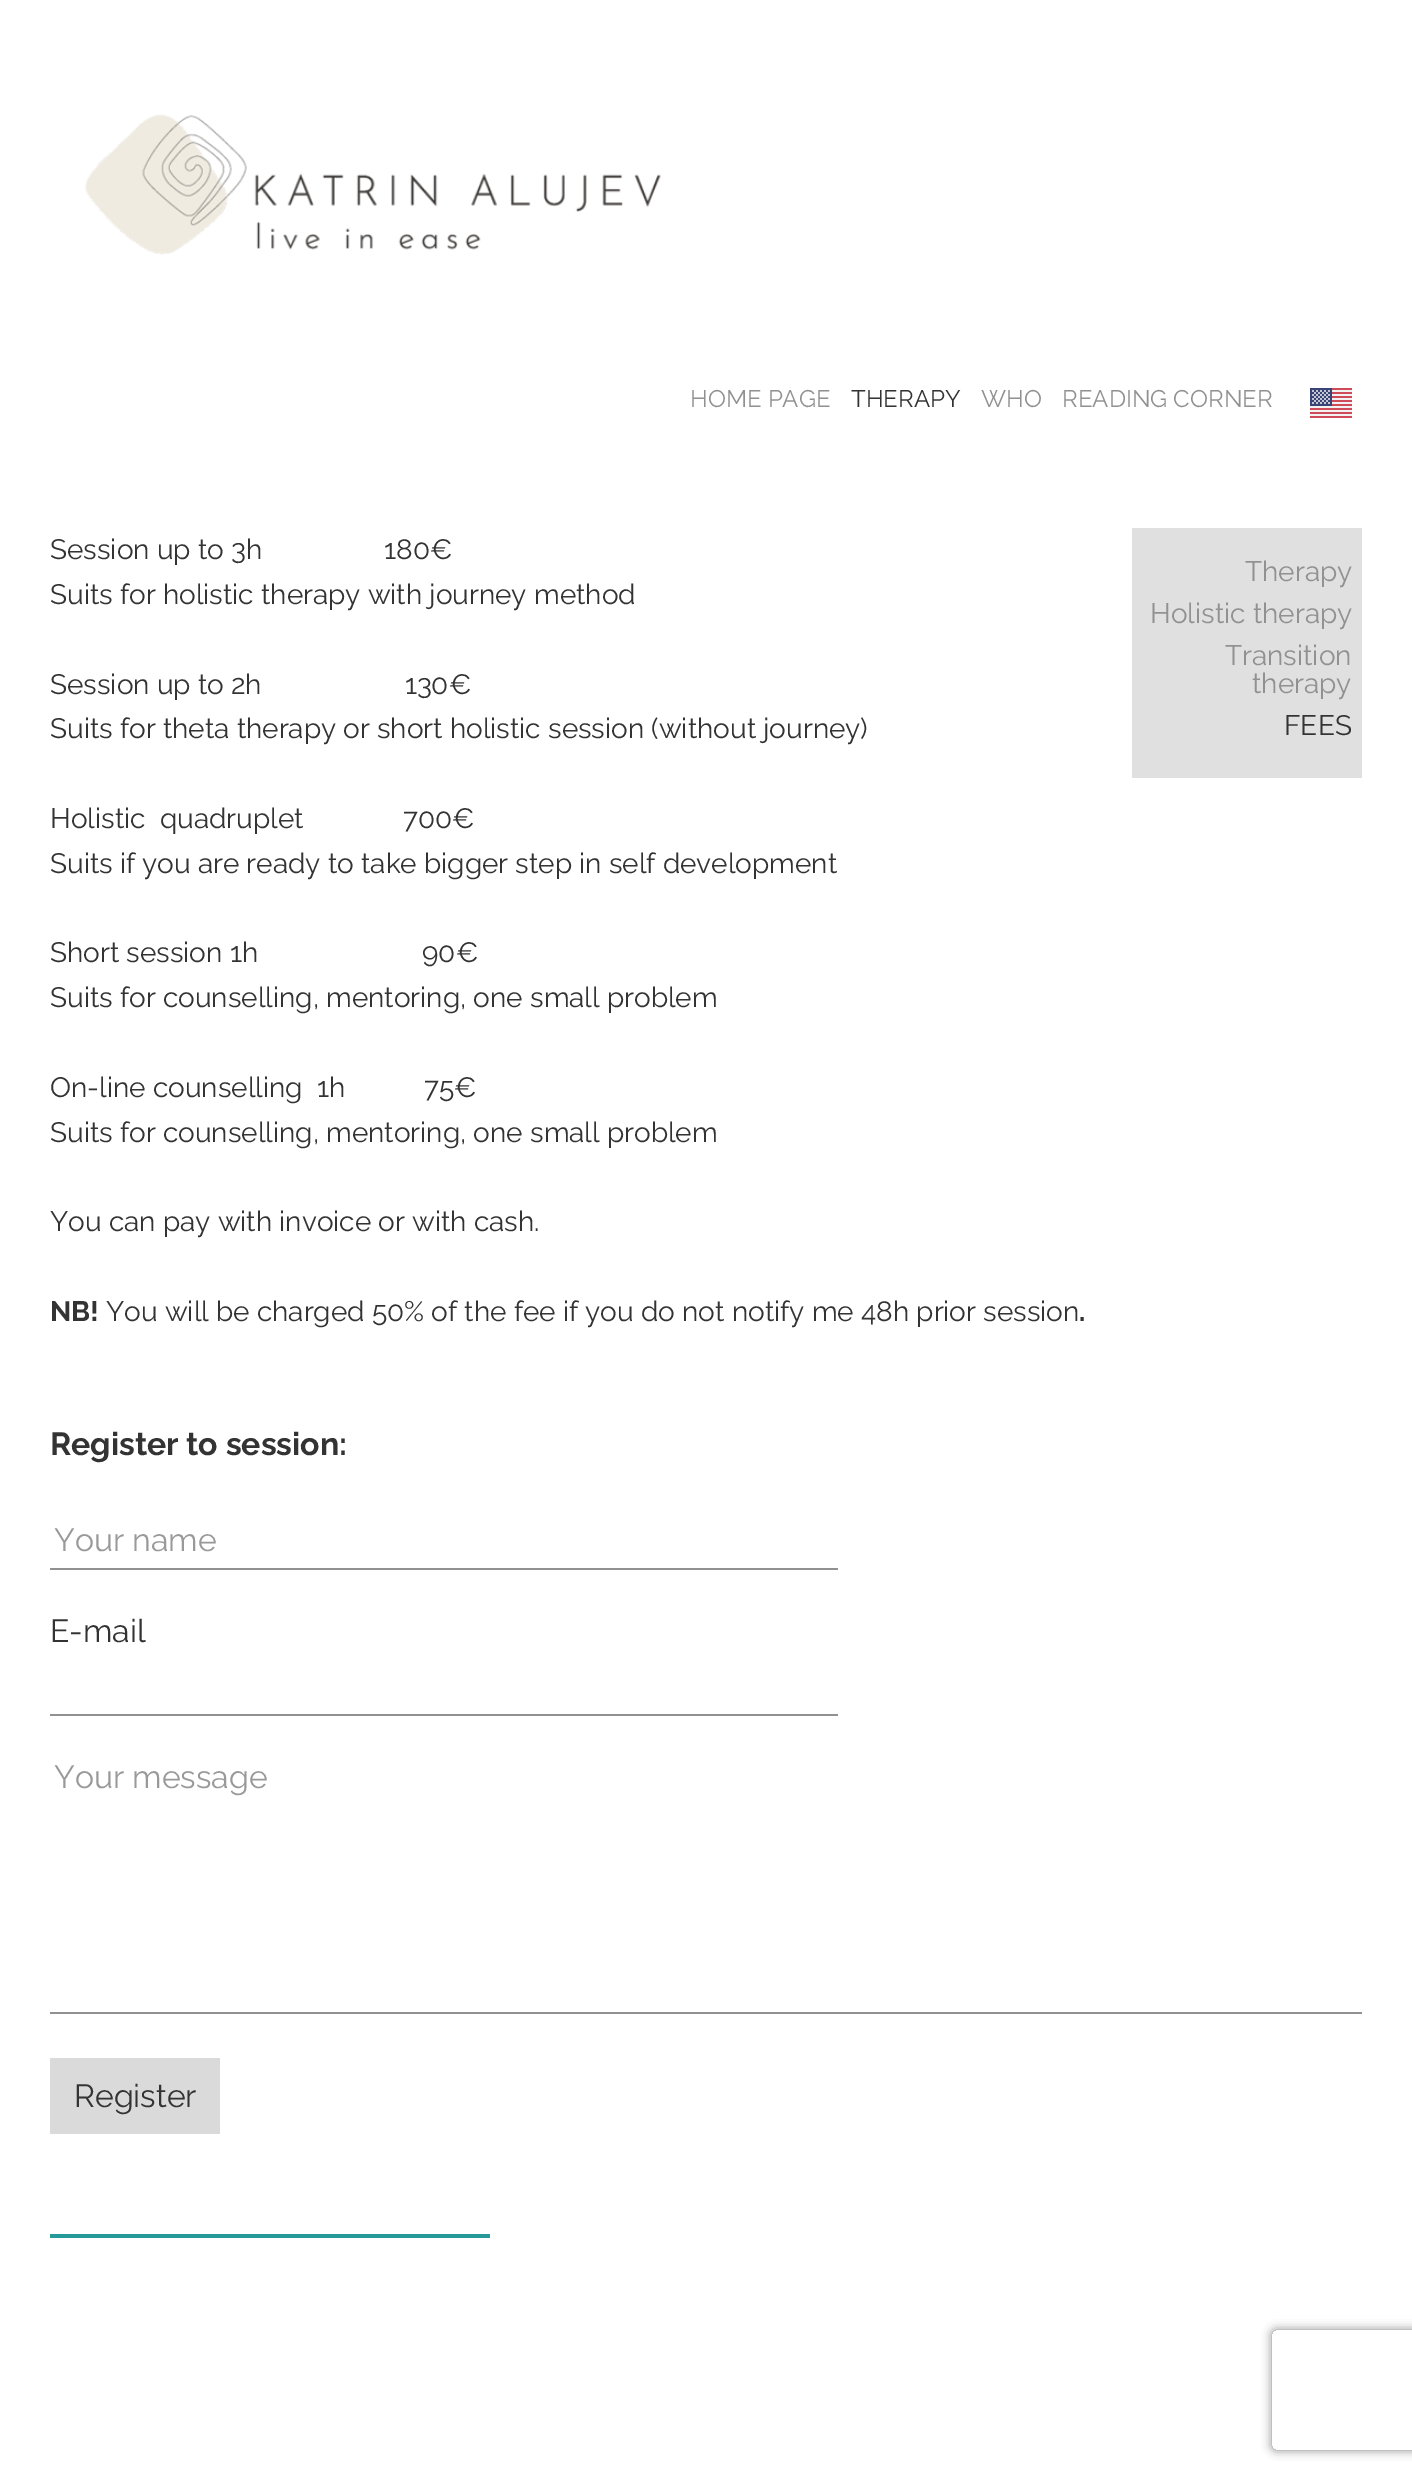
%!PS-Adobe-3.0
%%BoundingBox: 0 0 1412 2478
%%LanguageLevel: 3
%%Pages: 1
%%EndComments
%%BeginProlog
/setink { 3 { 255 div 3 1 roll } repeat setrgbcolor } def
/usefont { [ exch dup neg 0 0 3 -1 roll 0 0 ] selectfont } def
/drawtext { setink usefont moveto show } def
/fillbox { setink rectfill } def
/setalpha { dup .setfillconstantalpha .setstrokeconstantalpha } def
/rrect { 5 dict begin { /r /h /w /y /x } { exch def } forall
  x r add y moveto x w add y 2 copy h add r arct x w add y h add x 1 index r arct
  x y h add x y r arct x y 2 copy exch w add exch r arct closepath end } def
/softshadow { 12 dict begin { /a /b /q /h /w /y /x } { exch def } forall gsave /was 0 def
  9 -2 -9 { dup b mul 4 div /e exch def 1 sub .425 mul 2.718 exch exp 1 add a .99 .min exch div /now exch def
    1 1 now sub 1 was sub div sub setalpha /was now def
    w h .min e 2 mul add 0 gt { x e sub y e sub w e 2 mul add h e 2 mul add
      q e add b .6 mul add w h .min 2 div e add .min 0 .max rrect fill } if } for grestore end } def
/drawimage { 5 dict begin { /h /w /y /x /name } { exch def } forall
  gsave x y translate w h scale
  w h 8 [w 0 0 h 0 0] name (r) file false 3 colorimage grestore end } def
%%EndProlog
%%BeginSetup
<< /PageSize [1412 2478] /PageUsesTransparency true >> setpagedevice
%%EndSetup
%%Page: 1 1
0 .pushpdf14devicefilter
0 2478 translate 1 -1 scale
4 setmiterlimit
0 0 1412 2478 255 255 255 fillbox
(assets/img1.rgb) 85 114 576 141 drawimage
(HOME PAGE) 690 407 /Raleway-Regular 24 145 145 145 drawtext
(THERAPY) 851 407 /Raleway-Regular 24 51 51 51 drawtext
(WHO) 981 407 /Raleway-Regular 24 145 145 145 drawtext
(READING CORNER) 1062 407 /Raleway-Regular 24 145 145 145 drawtext
(assets/img2.rgb) 1310 388 42 30 drawimage
(Session up to 3h) 50 559 /Raleway-Regular 28 51 51 51 drawtext
(180€) 384 559 /Raleway-Regular 28 51 51 51 drawtext
(Suits for holistic therapy with journey method) 50 604 /Raleway-Regular 28 51 51 51 drawtext
(Session up to 2h                    130€) 50 694 /Raleway-Regular 28 51 51 51 drawtext
(Suits for theta therapy or short holistic session \(without journey\)) 50 738 /Raleway-Regular 28 51 51 51 drawtext
(Holistic  quadruplet) 50 828 /Raleway-Regular 28 51 51 51 drawtext
(700€) 403 828 /Raleway-Regular 28 51 51 51 drawtext
(Suits if you are ready to take bigger step in self development) 50 873 /Raleway-Regular 28 51 51 51 drawtext
(Short session 1h                       90€) 50 962 /Raleway-Regular 28 51 51 51 drawtext
(Suits for counselling, mentoring, one small problem) 50 1007 /Raleway-Regular 28 51 51 51 drawtext
(On-line counselling  1h           75€) 50 1097 /Raleway-Regular 28 51 51 51 drawtext
(Suits for counselling, mentoring, one small problem) 50 1142 /Raleway-Regular 28 51 51 51 drawtext
(You can pay with invoice or with cash.) 50 1231 /Raleway-Regular 28 51 51 51 drawtext
(NB!) 50 1321 /Raleway-Bold 28 51 51 51 drawtext
(You will be charged 50% of the fee if you do not notify me 48h prior session) 106 1321 /Raleway-Regular 28 51 51 51 drawtext
(.) 1079 1321 /Raleway-Bold 28 51 51 51 drawtext
(Register to session:) 50 1455 /Raleway-Bold 32 51 51 51 drawtext
50 1568 788 2 145 145 145 fillbox
(Your name) 54 1551 /Raleway-Regular 32 153 153 153 drawtext
(E-mail) 50 1642 /Raleway-Regular 32 51 51 51 drawtext
50 1714 788 2 145 145 145 fillbox
50 2012 1312 2 145 145 145 fillbox
(Your message) 54 1788 /Raleway-Regular 32 153 153 153 drawtext
50 2058 170 76 218 218 218 fillbox
(Register) 74 2107 /Raleway-Regular 32 51 51 51 drawtext
gsave
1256 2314 moveto 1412 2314 lineto 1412 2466 lineto 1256 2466 lineto closepath 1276 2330 moveto 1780 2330 lineto 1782 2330 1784 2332 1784 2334 curveto 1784 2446 lineto 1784 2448 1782 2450 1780 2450 curveto 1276 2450 lineto 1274 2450 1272 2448 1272 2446 curveto 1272 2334 lineto 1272 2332 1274 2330 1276 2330 curveto closepath eoclip newpath
128 128 128 setink
1272 2330 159 120 4 5 1 softshadow
grestore
1132 528 230 250 224 224 224 fillbox
(Therapy) 1245 581 /Raleway-Regular 28 145 145 145 drawtext
(Holistic therapy) 1150 623 /Raleway-Regular 28 145 145 145 drawtext
(Transition) 1225 665 /Raleway-Regular 28 145 145 145 drawtext
(therapy) 1252 693 /Raleway-Regular 28 145 145 145 drawtext
(FEES) 1284 735 /Raleway-Regular 28 51 51 51 drawtext
50 2234 440 4 38 153 153 fillbox
.poppdf14devicefilter showpage
%%EOF
